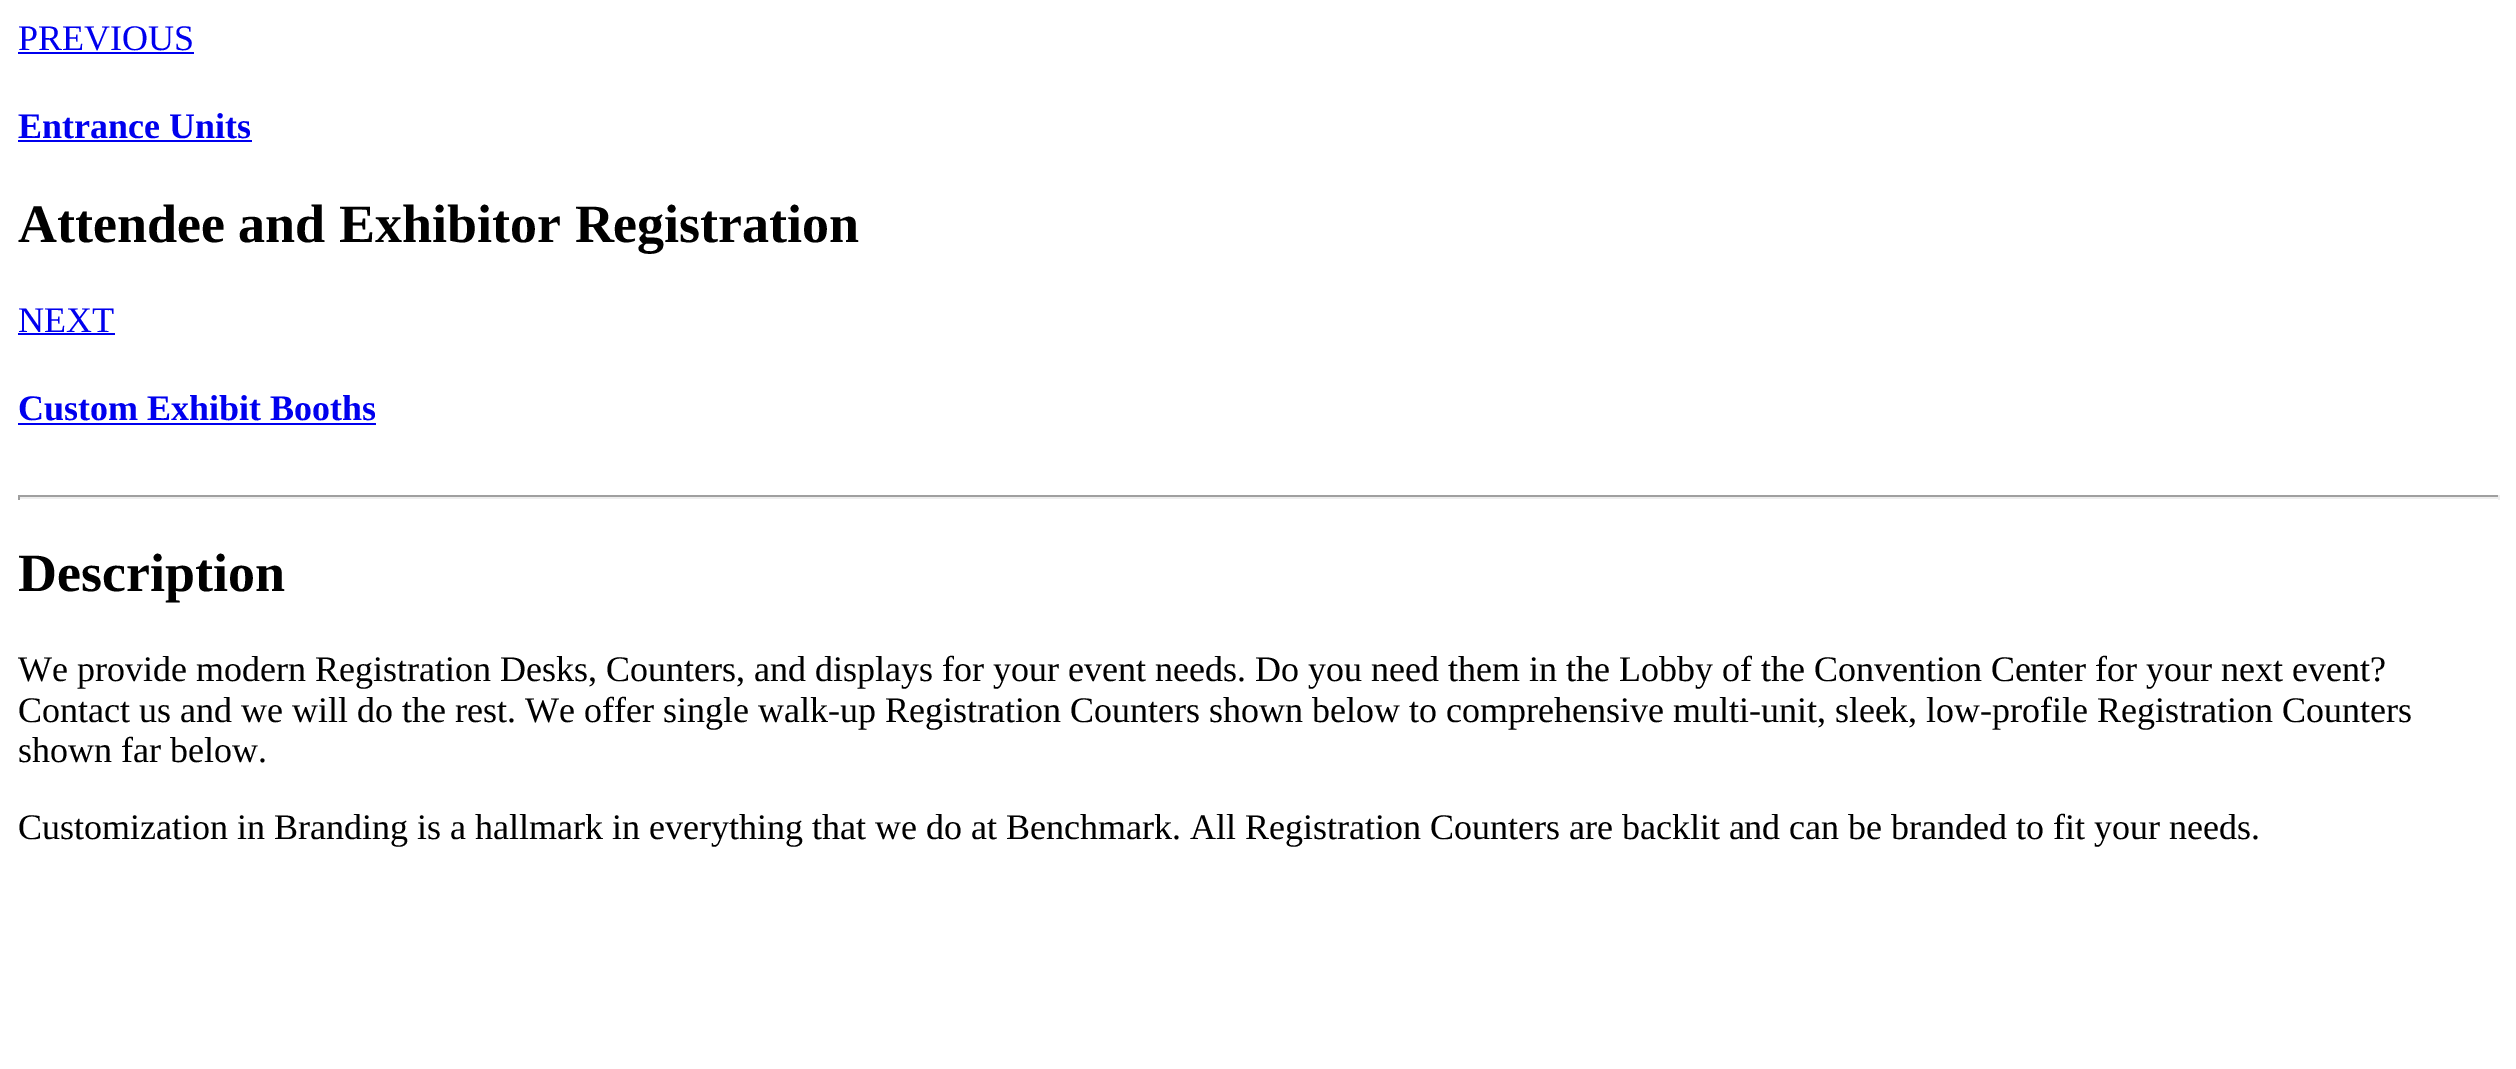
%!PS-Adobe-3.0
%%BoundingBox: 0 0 2516 1069
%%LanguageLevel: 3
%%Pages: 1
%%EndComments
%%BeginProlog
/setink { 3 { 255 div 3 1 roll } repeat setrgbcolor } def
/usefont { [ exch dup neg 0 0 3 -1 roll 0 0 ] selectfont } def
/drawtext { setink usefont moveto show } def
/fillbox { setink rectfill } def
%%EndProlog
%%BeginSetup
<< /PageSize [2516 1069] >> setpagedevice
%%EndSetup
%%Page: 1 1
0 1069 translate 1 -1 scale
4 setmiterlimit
0 0 2516 1069 255 255 255 fillbox
(PREVIOUS) 18 50 /LiberationSerif-Regular 36 0 0 238 drawtext
18 52 176 2 0 0 238 fillbox
(Entrance Units) 18 138 /LiberationSerif-Bold 36 0 0 238 drawtext
18 140 234 2 0 0 238 fillbox
(Attendee and Exhibitor Registration) 18 242 /LiberationSerif-Bold 54 0 0 0 drawtext
(NEXT) 18 332 /LiberationSerif-Regular 36 0 0 238 drawtext
18 333 97 2 0 0 238 fillbox
(Custom Exhibit Booths) 18 420 /LiberationSerif-Bold 36 0 0 238 drawtext
18 423 358 2 0 0 238 fillbox
18 495 2482 2 159 159 159 fillbox
2498 495 2 5 238 238 238 fillbox
18 497 2482 2 238 238 238 fillbox
18 495 2 5 159 159 159 fillbox
(Description) 18 591 /LiberationSerif-Bold 54 0 0 0 drawtext
(We provide modern Registration Desks, Counters, and displays for your event needs. Do you need them in the Lobby of the Convention Center for your next event?) 18 681 /LiberationSerif-Regular 36 0 0 0 drawtext
(Contact us and we will do the rest. We offer single walk-up Registration Counters shown below to comprehensive multi-unit, sleek, low-profile Registration Counters) 18 722 /LiberationSerif-Regular 36 0 0 0 drawtext
(shown far below.) 18 762 /LiberationSerif-Regular 36 0 0 0 drawtext
(Customization in Branding is a hallmark in everything that we do at Benchmark. All Registration Counters are backlit and can be branded to fit your needs.) 18 839 /LiberationSerif-Regular 36 0 0 0 drawtext
showpage
%%EOF
